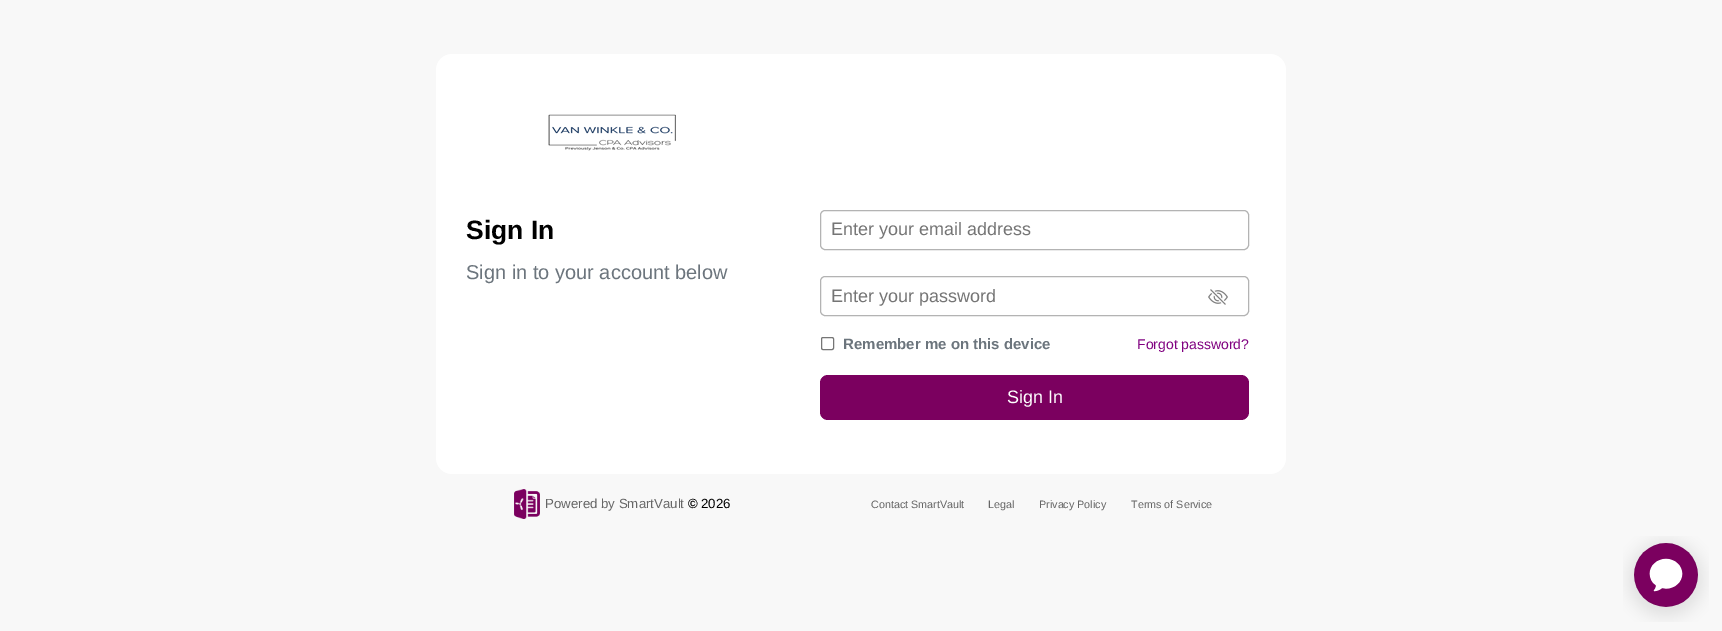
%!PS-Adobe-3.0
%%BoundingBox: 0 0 1722 631
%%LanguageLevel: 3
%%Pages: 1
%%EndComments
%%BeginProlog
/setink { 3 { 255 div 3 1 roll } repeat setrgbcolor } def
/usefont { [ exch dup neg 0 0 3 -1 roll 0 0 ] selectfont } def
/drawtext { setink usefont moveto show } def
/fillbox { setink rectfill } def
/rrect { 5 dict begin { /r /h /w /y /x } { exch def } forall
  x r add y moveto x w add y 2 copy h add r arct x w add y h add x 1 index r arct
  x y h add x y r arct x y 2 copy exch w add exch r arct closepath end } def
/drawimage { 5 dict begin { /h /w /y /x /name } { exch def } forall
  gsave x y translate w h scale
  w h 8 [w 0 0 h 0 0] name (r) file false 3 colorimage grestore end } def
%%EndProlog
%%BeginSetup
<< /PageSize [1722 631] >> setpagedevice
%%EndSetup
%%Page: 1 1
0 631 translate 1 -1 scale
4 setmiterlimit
0 0 1722 631 248 248 248 fillbox
255 255 255 setink
436 54 850 420 16 rrect fill
(assets/img1.rgb) 548 114 128 37 drawimage
(Sign In) 466 239 /LiberationSans-Bold 26.5 0 0 0 drawtext
(Sign in to your account below) 466 279 /LiberationSans-Regular 20 108 117 125 drawtext
179 179 179 setink
820.5 210.5 428 39 4.5 rrect stroke
(Enter your email address) 831 235 /LiberationSans-Regular 18 117 117 117 drawtext
179 179 179 setink
820.5 276.5 428 39 4.5 rrect stroke
(Enter your password) 831 302 /LiberationSans-Regular 18 117 117 117 drawtext
(assets/img2.rgb) 1208 289 20 16 drawimage
118 118 118 setink
821.5 337.5 12 12 1.5 rrect stroke
(Remember me on this device) 843 349 /LiberationSans-Bold 15 108 117 125 drawtext
(Forgot password?) 1137 349 /LiberationSans-Regular 14 128 0 128 drawtext
123 0 95 setink
820 375 429 45 8 rrect fill
(Sign In) 1007 403 /LiberationSans-Regular 18 255 255 255 drawtext
(assets/img3.rgb) 514 489 26 30 drawimage
(Powered by SmartVault) 545 508 /LiberationSans-Regular 13.25 102 102 102 drawtext
(©) 688 508 /LiberationSans-Bold 13.25 0 0 0 drawtext
(2026) 701 508 /LiberationSans-Regular 13.25 0 0 0 drawtext
(Contact SmartVault) 871 508 /LiberationSans-Regular 10.75 102 102 102 drawtext
(Legal) 988 508 /LiberationSans-Regular 10.75 102 102 102 drawtext
(Privacy Policy) 1039 508 /LiberationSans-Regular 10.75 102 102 102 drawtext
(Terms of Service) 1131 508 /LiberationSans-Regular 10.75 102 102 102 drawtext
(assets/img4.rgb) 1623 536 86 86 drawimage
showpage
%%EOF
